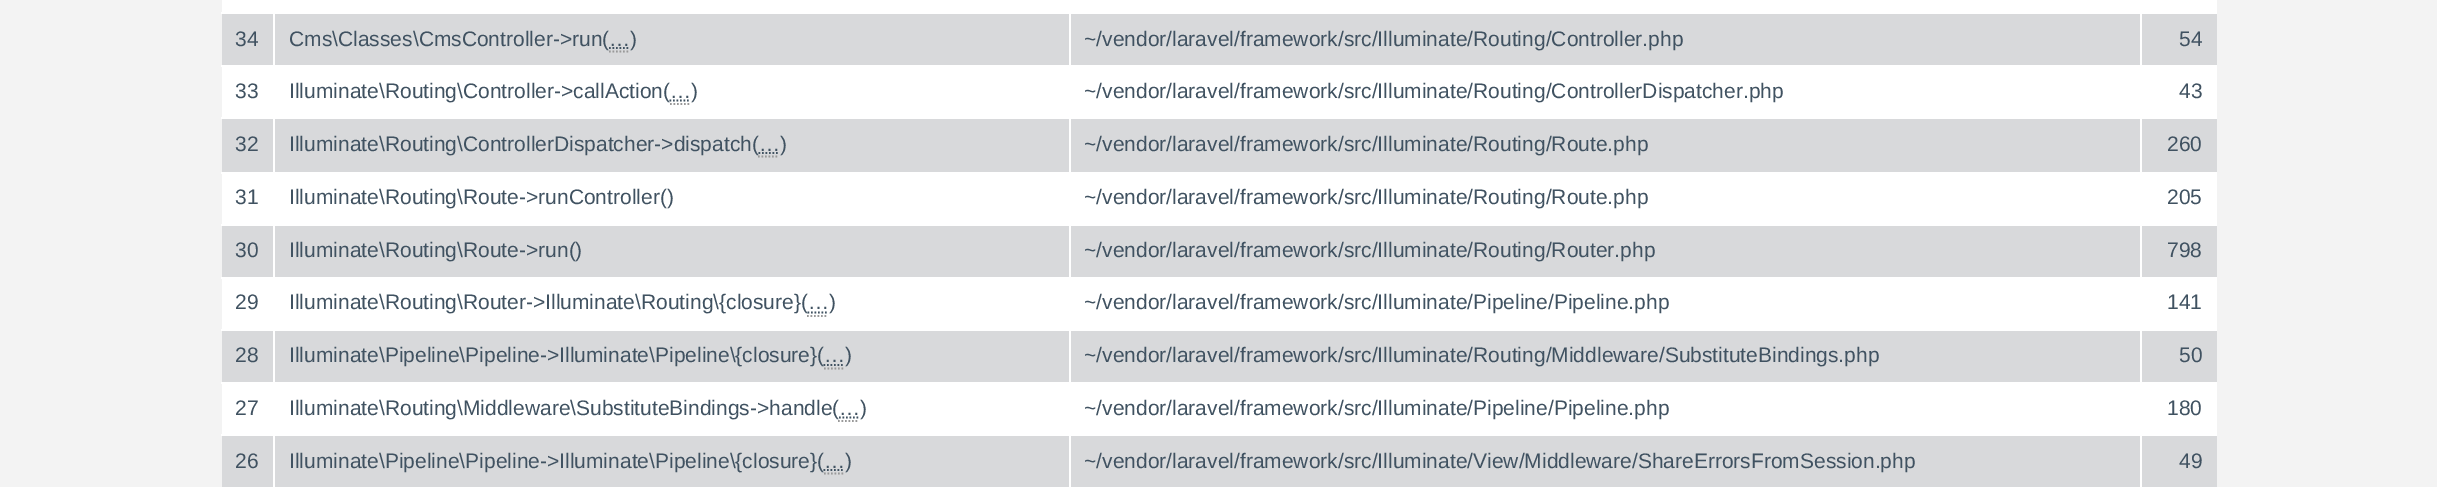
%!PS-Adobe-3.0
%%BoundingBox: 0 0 2437 487
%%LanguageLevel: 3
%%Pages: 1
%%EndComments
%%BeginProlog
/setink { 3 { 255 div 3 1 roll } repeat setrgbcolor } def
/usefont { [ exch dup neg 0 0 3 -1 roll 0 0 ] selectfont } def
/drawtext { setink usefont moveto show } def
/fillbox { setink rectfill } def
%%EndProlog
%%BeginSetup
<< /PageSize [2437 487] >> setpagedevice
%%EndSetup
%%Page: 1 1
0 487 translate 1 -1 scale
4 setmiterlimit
0 0 2437 487 243 243 243 fillbox
222 0 51 12 255 255 255 fillbox
273 0 1944 14 255 255 255 fillbox
222 14 51 51 216 217 219 fillbox
221 65 1996 2 255 255 255 fillbox
273 12 2 55 255 255 255 fillbox
221 12 54 2 255 255 255 fillbox
(34) 235 46 /LiberationSans-Regular 21 64 82 97 drawtext
275 14 794 51 216 217 219 fillbox
(Cms\\Classes\\CmsController->run\(…\)) 289 46 /LiberationSans-Regular 21 64 82 97 drawtext
1.8 setlinewidth
[1.75 1.75] 0 setdash
609 48 moveto 630 48 lineto stroke
153 153 153 setink
609 51.5 moveto 630 51.5 lineto stroke
1071 14 1069 51 216 217 219 fillbox
1069 12 2 55 255 255 255 fillbox
(~/vendor/laravel/framework/src/Illuminate/Routing/Controller.php) 1084 46 /LiberationSans-Regular 21 64 82 97 drawtext
2142 14 75 51 216 217 219 fillbox
2140 12 2 55 255 255 255 fillbox
(54) 2179 46 /LiberationSans-Regular 21 64 82 97 drawtext
222 67 51 50 255 255 255 fillbox
(33) 235 98 /LiberationSans-Regular 21 64 82 97 drawtext
273 67 1944 52 255 255 255 fillbox
(Illuminate\\Routing\\Controller->callAction\(…\)) 289 98 /LiberationSans-Regular 21 64 82 97 drawtext
669.5 100.5 moveto 690.5 100.5 lineto stroke
153 153 153 setink
670 104 moveto 691 104 lineto stroke
(~/vendor/laravel/framework/src/Illuminate/Routing/ControllerDispatcher.php) 1084 98 /LiberationSans-Regular 21 64 82 97 drawtext
(43) 2179 98 /LiberationSans-Regular 21 64 82 97 drawtext
222 119 51 53 216 217 219 fillbox
273 172 1944 52 255 255 255 fillbox
221 172 54 2 255 255 255 fillbox
273 117 2 56 255 255 255 fillbox
221 117 54 2 255 255 255 fillbox
(32) 235 151 /LiberationSans-Regular 21 64 82 97 drawtext
275 119 794 53 216 217 219 fillbox
(Illuminate\\Routing\\ControllerDispatcher->dispatch\(…\)) 289 151 /LiberationSans-Regular 21 64 82 97 drawtext
758.5 153 moveto 779.5 153 lineto stroke
153 153 153 setink
758 156.5 moveto 779 156.5 lineto stroke
1071 119 1069 53 216 217 219 fillbox
1069 117 2 56 255 255 255 fillbox
(~/vendor/laravel/framework/src/Illuminate/Routing/Route.php) 1084 151 /LiberationSans-Regular 21 64 82 97 drawtext
2142 119 75 53 216 217 219 fillbox
2140 117 2 56 255 255 255 fillbox
(260) 2167 151 /LiberationSans-Regular 21 64 82 97 drawtext
222 174 51 50 255 255 255 fillbox
(31) 235 204 /LiberationSans-Regular 21 64 82 97 drawtext
(Illuminate\\Routing\\Route->runController\(\)) 289 204 /LiberationSans-Regular 21 64 82 97 drawtext
(~/vendor/laravel/framework/src/Illuminate/Routing/Route.php) 1084 204 /LiberationSans-Regular 21 64 82 97 drawtext
(205) 2167 204 /LiberationSans-Regular 21 64 82 97 drawtext
222 226 51 51 216 217 219 fillbox
2140 224 77 2 255 255 255 fillbox
273 277 1944 52 255 255 255 fillbox
2140 224 2 54 255 255 255 fillbox
1069 224 1073 2 255 255 255 fillbox
1069 224 2 54 255 255 255 fillbox
273 224 798 2 255 255 255 fillbox
221 277 54 2 255 255 255 fillbox
273 224 2 54 255 255 255 fillbox
221 224 54 2 255 255 255 fillbox
(30) 235 257 /LiberationSans-Regular 21 64 82 97 drawtext
275 226 794 51 216 217 219 fillbox
(Illuminate\\Routing\\Route->run\(\)) 289 257 /LiberationSans-Regular 21 64 82 97 drawtext
1071 226 1069 51 216 217 219 fillbox
(~/vendor/laravel/framework/src/Illuminate/Routing/Router.php) 1084 257 /LiberationSans-Regular 21 64 82 97 drawtext
2142 226 75 51 216 217 219 fillbox
(798) 2167 257 /LiberationSans-Regular 21 64 82 97 drawtext
222 279 51 50 255 255 255 fillbox
(29) 235 309 /LiberationSans-Regular 21 64 82 97 drawtext
(Illuminate\\Routing\\Router->Illuminate\\Routing\\{closure}\(…\)) 289 309 /LiberationSans-Regular 21 64 82 97 drawtext
807.5 312.5 moveto 828.5 312.5 lineto stroke
153 153 153 setink
807 316 moveto 828 316 lineto stroke
(~/vendor/laravel/framework/src/Illuminate/Pipeline/Pipeline.php) 1084 309 /LiberationSans-Regular 21 64 82 97 drawtext
(141) 2167 309 /LiberationSans-Regular 21 64 82 97 drawtext
222 331 51 51 216 217 219 fillbox
2140 329 77 2 255 255 255 fillbox
221 382 1996 2 255 255 255 fillbox
2140 329 2 54 255 255 255 fillbox
1069 329 1073 2 255 255 255 fillbox
1069 329 2 54 255 255 255 fillbox
273 329 798 2 255 255 255 fillbox
273 329 2 54 255 255 255 fillbox
221 329 54 2 255 255 255 fillbox
(28) 235 362 /LiberationSans-Regular 21 64 82 97 drawtext
275 331 794 51 216 217 219 fillbox
(Illuminate\\Pipeline\\Pipeline->Illuminate\\Pipeline\\{closure}\(…\)) 289 362 /LiberationSans-Regular 21 64 82 97 drawtext
823.5 365 moveto 844.5 365 lineto stroke
153 153 153 setink
824 368.5 moveto 845 368.5 lineto stroke
1071 331 1069 51 216 217 219 fillbox
(~/vendor/laravel/framework/src/Illuminate/Routing/Middleware/SubstituteBindings.php) 1084 362 /LiberationSans-Regular 21 64 82 97 drawtext
2142 331 75 51 216 217 219 fillbox
(50) 2179 362 /LiberationSans-Regular 21 64 82 97 drawtext
222 384 51 50 255 255 255 fillbox
(27) 235 415 /LiberationSans-Regular 21 64 82 97 drawtext
273 384 1944 52 255 255 255 fillbox
(Illuminate\\Routing\\Middleware\\SubstituteBindings->handle\(…\)) 289 415 /LiberationSans-Regular 21 64 82 97 drawtext
839 417.5 moveto 860 417.5 lineto stroke
153 153 153 setink
838 421 moveto 859 421 lineto stroke
(~/vendor/laravel/framework/src/Illuminate/Pipeline/Pipeline.php) 1084 415 /LiberationSans-Regular 21 64 82 97 drawtext
(180) 2167 415 /LiberationSans-Regular 21 64 82 97 drawtext
222 436 51 51 216 217 219 fillbox
273 434 2 53 255 255 255 fillbox
221 434 54 2 255 255 255 fillbox
(26) 235 468 /LiberationSans-Regular 21 64 82 97 drawtext
275 436 794 51 216 217 219 fillbox
(Illuminate\\Pipeline\\Pipeline->Illuminate\\Pipeline\\{closure}\(…\)) 289 468 /LiberationSans-Regular 21 64 82 97 drawtext
823.5 470 moveto 844.5 470 lineto stroke
153 153 153 setink
824 473.5 moveto 845 473.5 lineto stroke
1071 436 1069 51 216 217 219 fillbox
1069 434 2 53 255 255 255 fillbox
(~/vendor/laravel/framework/src/Illuminate/View/Middleware/ShareErrorsFromSession.php) 1084 468 /LiberationSans-Regular 21 64 82 97 drawtext
2142 436 75 51 216 217 219 fillbox
2140 434 2 53 255 255 255 fillbox
(49) 2179 468 /LiberationSans-Regular 21 64 82 97 drawtext
showpage
%%EOF
